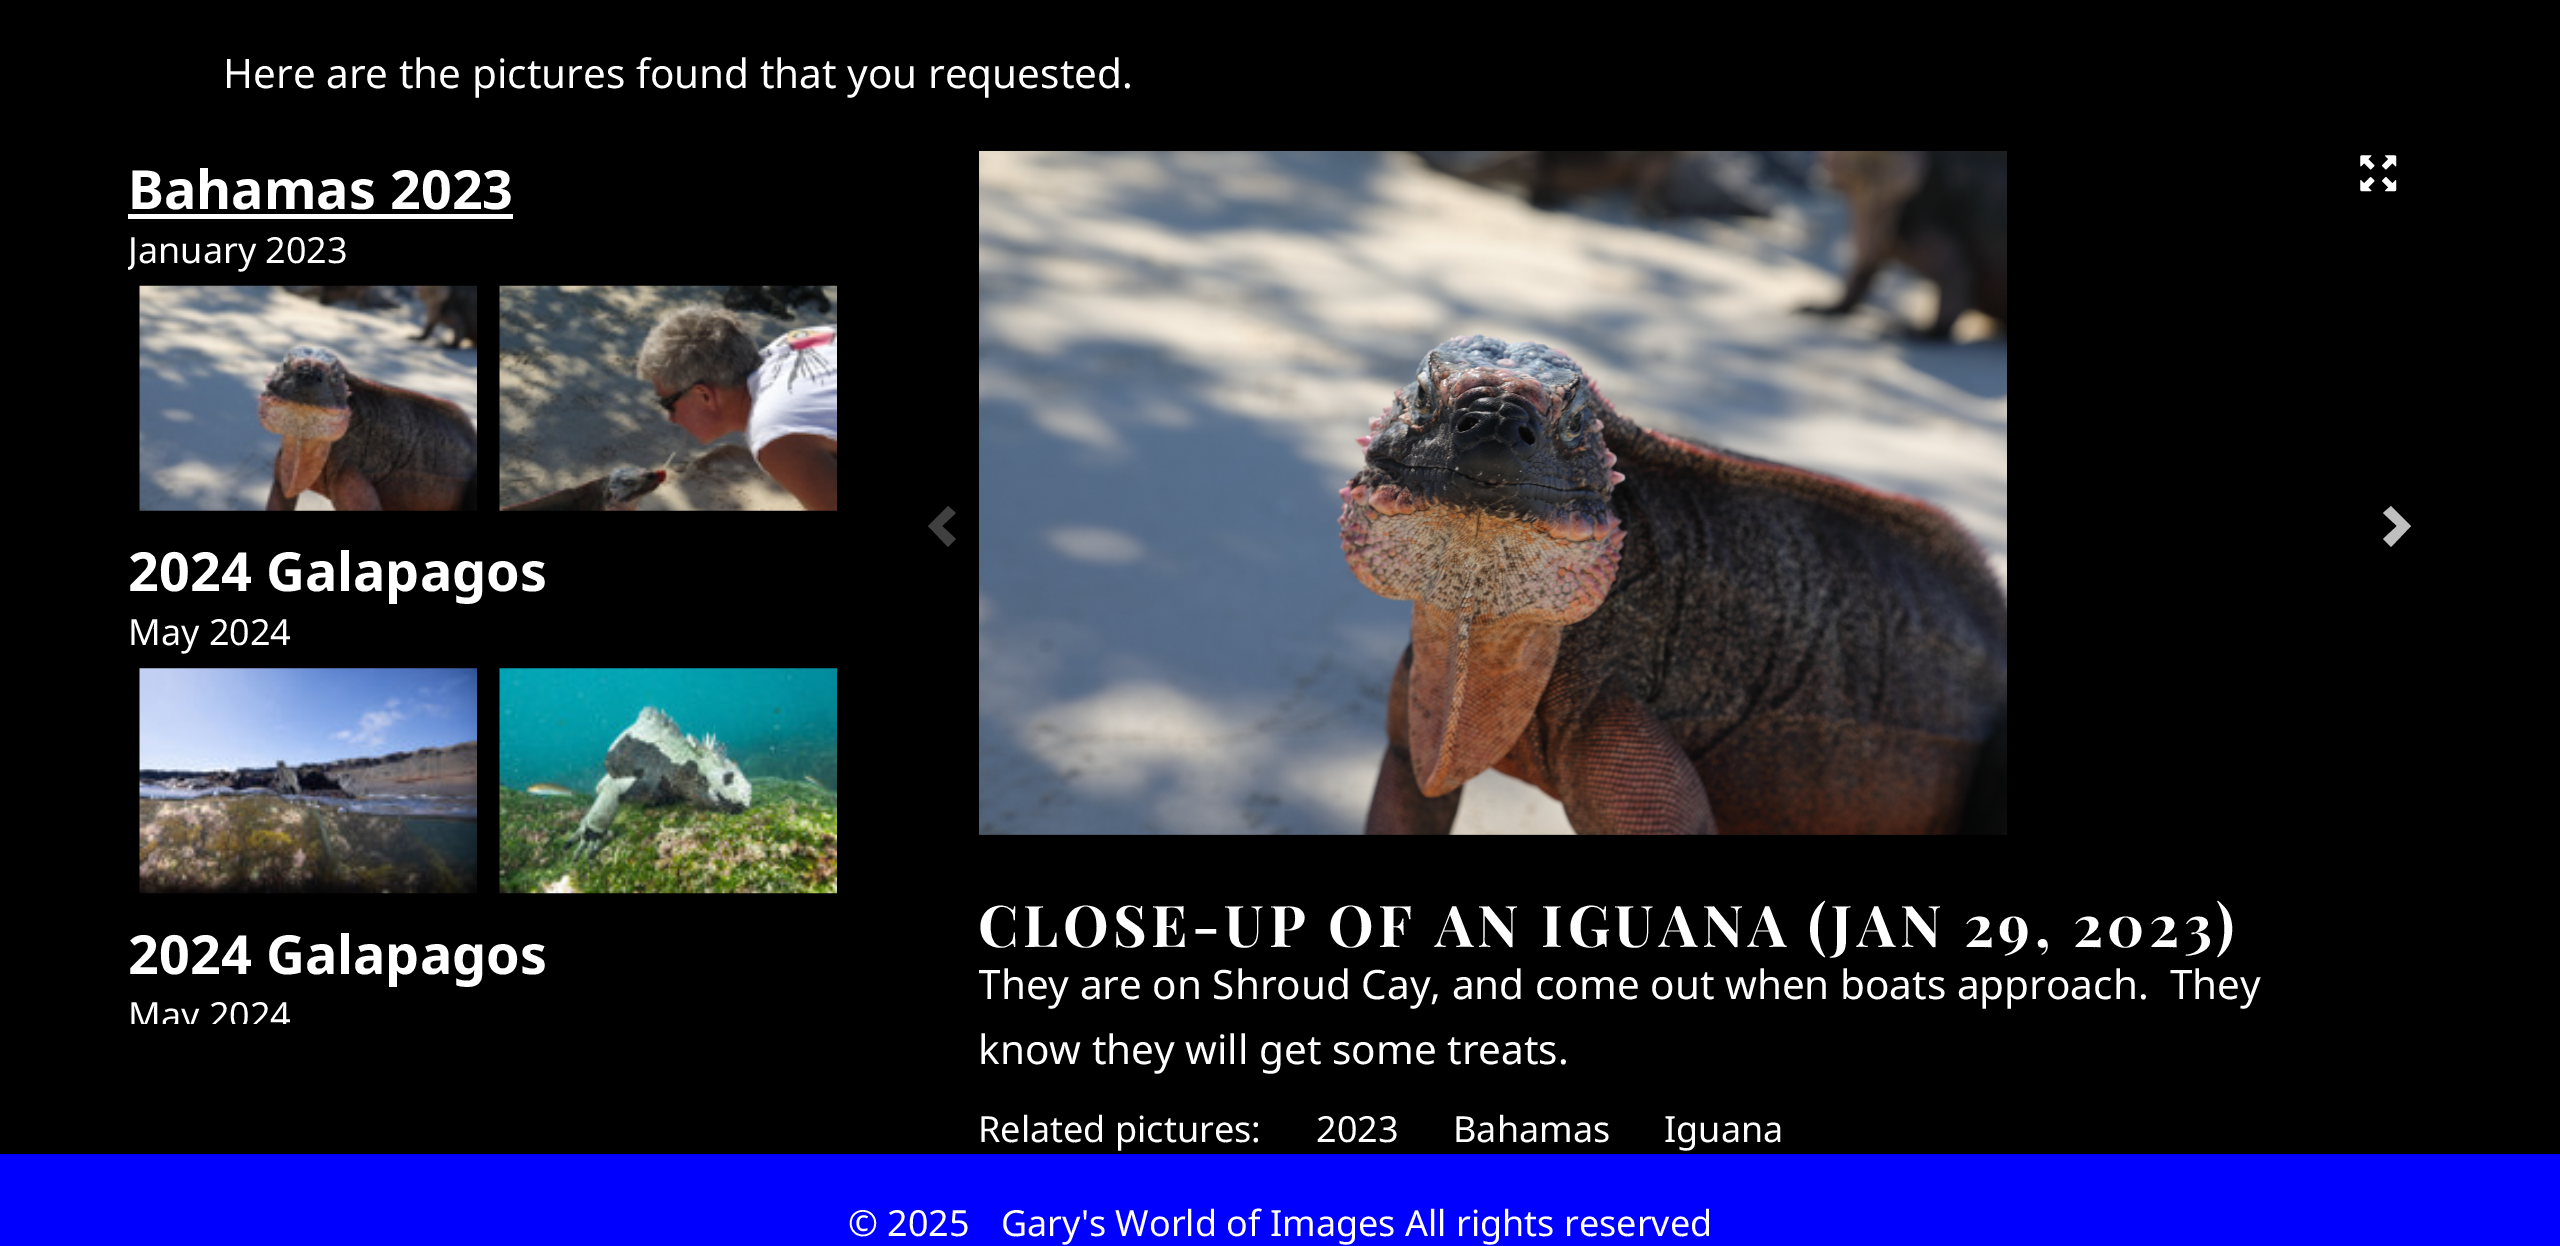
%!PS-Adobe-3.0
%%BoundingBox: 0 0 2560 1246
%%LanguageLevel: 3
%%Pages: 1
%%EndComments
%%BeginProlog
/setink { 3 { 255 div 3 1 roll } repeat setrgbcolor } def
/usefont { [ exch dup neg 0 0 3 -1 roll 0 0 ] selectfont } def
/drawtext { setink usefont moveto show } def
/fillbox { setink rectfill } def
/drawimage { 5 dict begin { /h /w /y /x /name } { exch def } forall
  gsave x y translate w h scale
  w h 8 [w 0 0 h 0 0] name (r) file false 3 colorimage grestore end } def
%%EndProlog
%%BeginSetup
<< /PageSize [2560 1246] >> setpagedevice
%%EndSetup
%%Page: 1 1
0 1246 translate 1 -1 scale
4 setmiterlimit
0 0 2560 1246 0 0 0 fillbox
(Here are the pictures found that you requested.) 223 88 /NotoSans-Regular 40.5 255 255 255 drawtext
(Bahamas 2023) 128 209 /NotoSans-Bold 54 255 255 255 drawtext
128 214 385 5 255 255 255 fillbox
gsave
128 151 761 873 rectclip
(January 2023) 128 263 /NotoSans-Regular 36 255 255 255 drawtext
grestore
(assets/img1.rgb) 139 285 338 226 drawimage
(assets/img2.rgb) 499 285 338 226 drawimage
(2024 Galapagos) 128 591 /NotoSans-Bold 54 255 255 255 drawtext
(May 2024) 128 645 /NotoSans-Regular 36 255 255 255 drawtext
(assets/img3.rgb) 139 668 338 226 drawimage
(assets/img4.rgb) 499 668 338 226 drawimage
(2024 Galapagos) 128 974 /NotoSans-Bold 54 255 255 255 drawtext
gsave
128 151 761 873 rectclip
(May 2024) 128 1028 /NotoSans-Regular 36 255 255 255 drawtext
grestore
64 64 64 setink
956 513 moveto 942 526 lineto 956 539 lineto 948 547 lineto 928 526 lineto 948 506 lineto closepath fill
191 191 191 setink
2411 526 moveto 2391 547 lineto 2383 539 lineto 2397 526 lineto 2383 513 lineto 2391 506 lineto closepath fill
(assets/img5.rgb) 979 151 1028 684 drawimage
/PlayfairDisplay-Bold 57.6 usefont
255 255 255 setink
978 947 moveto 4.5 0 (CLOSE-UP OF AN IGUANA \(JAN 29, 2023\)) ashow
gsave
979 151 1381 1003 rectclip
(They are on Shroud Cay, and come out when boats approach.  They) 978 999 /NotoSans-Regular 40.5 255 255 255 drawtext
grestore
(know they will get some treats.) 978 1064 /NotoSans-Regular 40.5 255 255 255 drawtext
(Related pictures:) 978 1142 /NotoSans-Regular 36 255 255 255 drawtext
(2023) 1316 1142 /NotoSans-Regular 36 255 255 255 drawtext
(Bahamas) 1453 1142 /NotoSans-Regular 36 255 255 255 drawtext
(Iguana) 1664 1142 /NotoSans-Regular 36 255 255 255 drawtext
(assets/img6.rgb) 2360 155 37 37 drawimage
0 1154 2560 92 0 0 255 fillbox
(© 2025) 848 1236 /NotoSans-Regular 36 255 255 255 drawtext
(Gary's World of Images All rights reserved) 1001 1236 /NotoSans-Regular 36 255 255 255 drawtext
showpage
%%EOF
